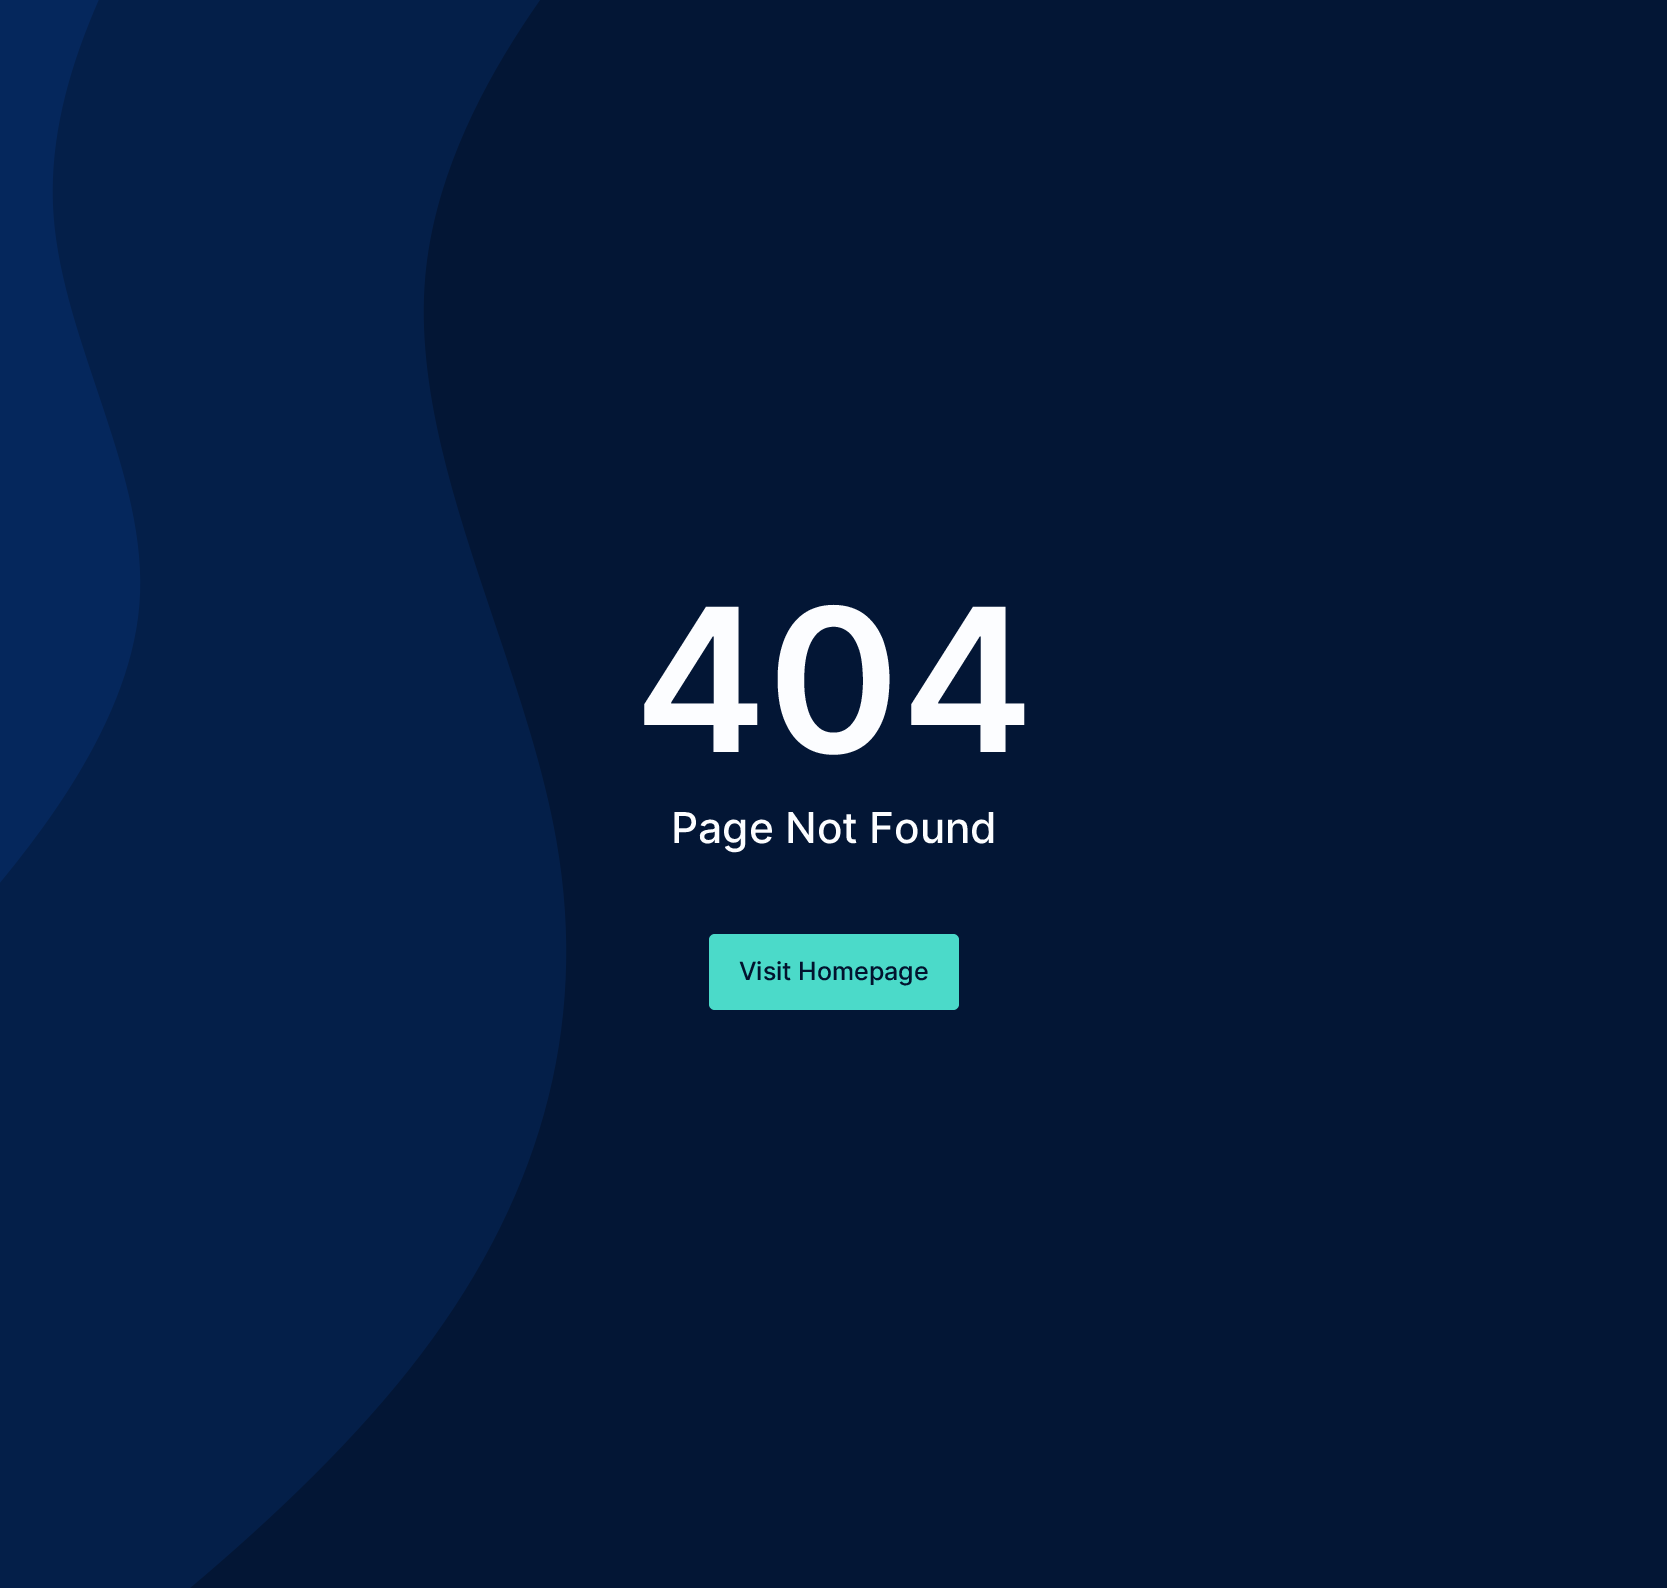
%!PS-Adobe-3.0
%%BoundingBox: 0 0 1667 1588
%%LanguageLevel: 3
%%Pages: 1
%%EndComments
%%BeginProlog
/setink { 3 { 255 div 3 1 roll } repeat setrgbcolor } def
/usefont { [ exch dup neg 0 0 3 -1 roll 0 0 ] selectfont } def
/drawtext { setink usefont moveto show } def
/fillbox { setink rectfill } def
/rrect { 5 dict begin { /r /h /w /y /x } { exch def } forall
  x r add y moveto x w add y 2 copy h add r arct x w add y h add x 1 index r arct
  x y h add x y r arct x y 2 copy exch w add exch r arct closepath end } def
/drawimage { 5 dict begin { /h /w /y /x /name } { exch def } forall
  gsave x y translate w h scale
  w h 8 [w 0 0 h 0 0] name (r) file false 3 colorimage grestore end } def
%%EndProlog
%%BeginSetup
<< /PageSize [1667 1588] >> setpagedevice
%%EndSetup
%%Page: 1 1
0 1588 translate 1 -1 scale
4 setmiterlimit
0 0 1667 1588 3 22 53 fillbox
(assets/img1.rgb) 0 0 567 1588 drawimage
(404) 634 752 /Inter-SemiBold 200 252 253 255 drawtext
(Page Not Found) 671 843 /Inter-Medium 42.5 252 253 255 drawtext
75 218 201 setink
709 934 250 76 6 rrect fill
(Visit Homepage) 739 980 /Inter-Medium 25 2 19 46 drawtext
showpage
%%EOF
